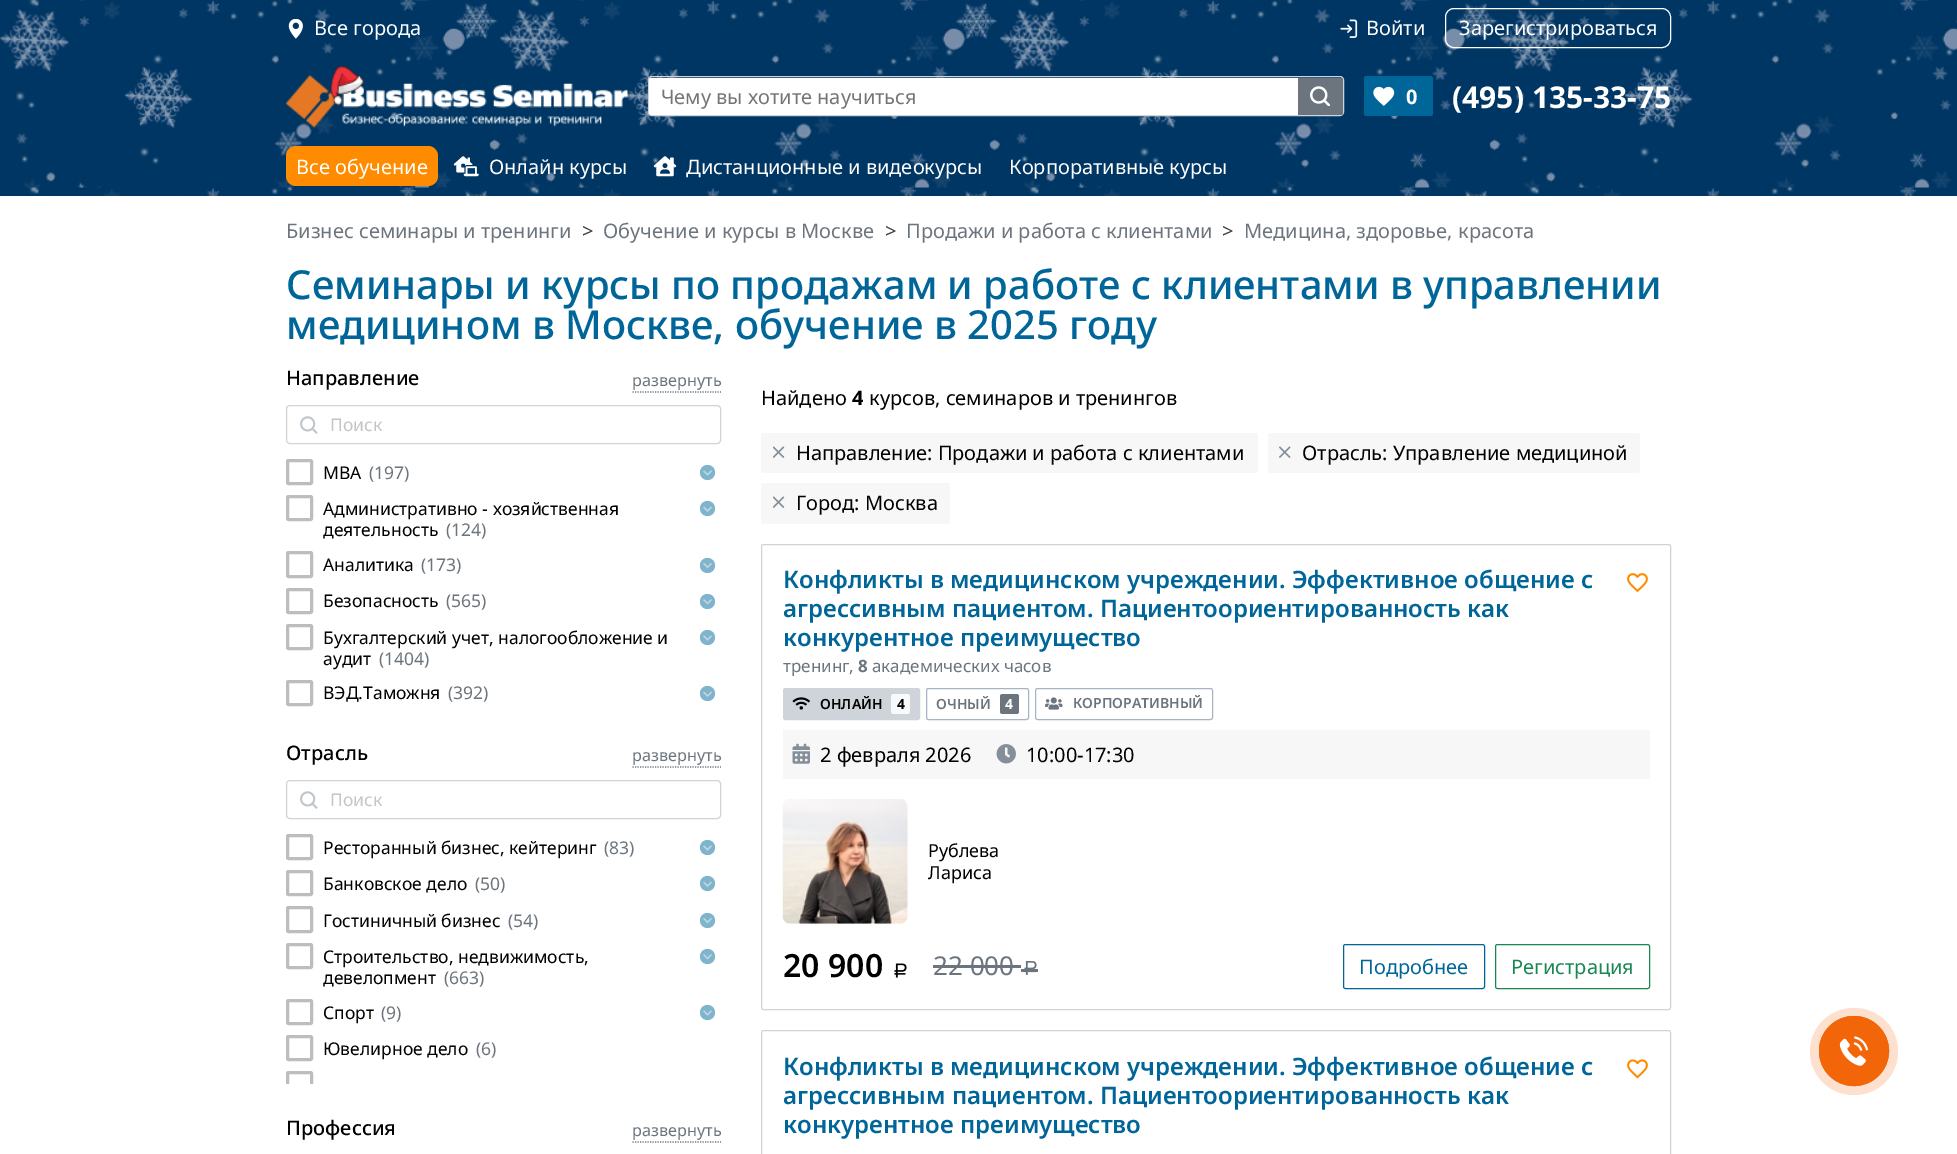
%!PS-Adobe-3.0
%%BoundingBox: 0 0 1957 1154
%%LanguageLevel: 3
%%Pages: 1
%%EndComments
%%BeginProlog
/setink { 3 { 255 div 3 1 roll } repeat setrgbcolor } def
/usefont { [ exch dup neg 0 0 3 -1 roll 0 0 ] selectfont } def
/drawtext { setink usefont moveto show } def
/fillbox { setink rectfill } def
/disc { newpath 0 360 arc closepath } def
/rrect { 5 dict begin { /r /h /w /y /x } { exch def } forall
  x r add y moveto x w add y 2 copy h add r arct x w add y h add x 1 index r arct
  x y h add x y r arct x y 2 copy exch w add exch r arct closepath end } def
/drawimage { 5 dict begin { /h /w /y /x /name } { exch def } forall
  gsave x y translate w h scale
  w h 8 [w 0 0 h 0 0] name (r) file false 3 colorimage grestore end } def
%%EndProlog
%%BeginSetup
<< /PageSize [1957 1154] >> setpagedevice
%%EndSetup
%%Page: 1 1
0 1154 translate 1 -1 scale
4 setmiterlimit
0 0 1957 1154 255 255 255 fillbox
0 0 1957 196 0 54 99 fillbox
(assets/img1.rgb) 0 0 1957 196 drawimage
(assets/img2.rgb) 288 19 15 20 drawimage
(Все города) 314 35 /NotoSans-Regular 20 255 255 255 drawtext
(assets/img3.rgb) 1340 19 18 19 drawimage
(Войти) 1366 35 /NotoSans-Regular 20 255 255 255 drawtext
1445.5 8.5 225 39 8.5 rrect stroke
(Зарегистрироваться) 1459 35 /NotoSans-Regular 20 255 255 255 drawtext
(assets/img4.rgb) 286 66 342 62 drawimage
206 212 218 setink
648.5 76.5 695 39 3.5 rrect stroke
255 255 255 setink
651.5 78 moveto 1298 78 lineto 1298 115 lineto 651.5 115 lineto 650 115 649 114 649 112.5 curveto 649 80.5 lineto 649 79 650 78 651.5 78 curveto closepath fill
(Чему вы хотите научиться) 661 104 /NotoSans-Regular 20 117 117 117 drawtext
108 117 125 setink
1298 78 moveto 1340.5 78 lineto 1342 78 1343 79 1343 80.5 curveto 1343 112.5 lineto 1343 114 1342 115 1340.5 115 curveto 1298 115 lineto closepath fill
(assets/img5.rgb) 1310 86 20 20 drawimage
0 102 153 setink
1364 76 69 40 2.5 rrect fill
(assets/img6.rgb) 1373 86 22 20 drawimage
(0) 1406 104 /NotoSans-Bold 20 255 255 255 drawtext
(\(495\) 135-33-75) 1452 108 /NotoSans-Bold 30 255 255 255 drawtext
255 140 0 setink
286 146 152 40 10 rrect fill
(Все обучение) 296 174 /NotoSans-Regular 20 255 255 255 drawtext
(assets/img7.rgb) 453 156 26 21 drawimage
(Онлайн курсы) 489 174 /NotoSans-Regular 20 255 255 255 drawtext
(assets/img8.rgb) 653 156 24 21 drawimage
(Дистанционные и видеокурсы) 686 174 /NotoSans-Regular 20 255 255 255 drawtext
(Корпоративные курсы) 1009 174 /NotoSans-Regular 20 255 255 255 drawtext
(Бизнес семинары и тренинги) 286 238 /NotoSans-Regular 20 108 117 125 drawtext
(>) 582 238 /NotoSans-Regular 20 64 64 64 drawtext
(Обучение и курсы в Москве) 603 238 /NotoSans-Regular 20 108 117 125 drawtext
(>) 885 238 /NotoSans-Regular 20 64 64 64 drawtext
(Продажи и работа с клиентами) 906 238 /NotoSans-Regular 20 108 117 125 drawtext
(>) 1222 238 /NotoSans-Regular 20 64 64 64 drawtext
(Медицина, здоровье, красота) 1244 238 /NotoSans-Regular 20 108 117 125 drawtext
(Семинары и курсы по продажам и работе с клиентами в управлении) 286 299 /NotoSans-Medium 40 0 102 153 drawtext
(медицином в Москве, обучение в 2025 году) 286 339 /NotoSans-Medium 40 0 102 153 drawtext
(Направление) 286 385 /NotoSans-Medium 20 0 0 0 drawtext
108 117 125 setink
1.2 setlinewidth
[1.25 1.25] 0 setdash
632.5 392 moveto 721 392 lineto stroke
(развернуть) 632 386 /NotoSans-Regular 16.25 108 117 125 drawtext
206 212 218 setink
1 setlinewidth
[] 0 setdash
286.5 405.5 434 38 3.5 rrect stroke
(assets/img9.rgb) 300 416 18 18 drawimage
(Поиск) 330 431 /NotoSans-Regular 17.5 197 197 197 drawtext
189 189 189 setink
3 setlinewidth
287.5 460.5 24 23 1 rrect stroke
(MBA) 323 479 /NotoSans-Regular 17.5 0 0 0 drawtext
(\(197\)) 369 479 /NotoSans-Regular 17.5 108 117 125 drawtext
128 179 204 setink
707.5 472.5 7.5 disc fill
(assets/img10.rgb) 703 470 9 6 drawimage
189 189 189 setink
287.5 496.5 24 23 1 rrect stroke
(Административно - хозяйственная) 323 515 /NotoSans-Regular 17.5 0 0 0 drawtext
(деятельность) 323 536 /NotoSans-Regular 17.5 0 0 0 drawtext
(\(124\)) 446 536 /NotoSans-Regular 17.5 108 117 125 drawtext
128 179 204 setink
707.5 508.5 7.5 disc fill
(assets/img11.rgb) 703 506 9 6 drawimage
189 189 189 setink
287.5 552.5 24 24 1 rrect stroke
(Аналитика) 323 571 /NotoSans-Regular 17.5 0 0 0 drawtext
(\(173\)) 421 571 /NotoSans-Regular 17.5 108 117 125 drawtext
128 179 204 setink
707.5 565.5 7.5 disc fill
(assets/img12.rgb) 703 563 9 6 drawimage
189 189 189 setink
287.5 589.5 24 23 1 rrect stroke
(Безопасность) 323 607 /NotoSans-Regular 17.5 0 0 0 drawtext
(\(565\)) 446 607 /NotoSans-Regular 17.5 108 117 125 drawtext
128 179 204 setink
707.5 601.5 7.5 disc fill
(assets/img13.rgb) 703 599 9 6 drawimage
189 189 189 setink
287.5 625.5 24 23 1 rrect stroke
(Бухгалтерский учет, налогообложение и) 323 644 /NotoSans-Regular 17.5 0 0 0 drawtext
(аудит) 323 665 /NotoSans-Regular 17.5 0 0 0 drawtext
(\(1404\)) 379 665 /NotoSans-Regular 17.5 108 117 125 drawtext
128 179 204 setink
707.5 637.5 7.5 disc fill
(assets/img10.rgb) 703 635 9 6 drawimage
189 189 189 setink
287.5 681.5 24 23 1 rrect stroke
(ВЭД.Таможня) 323 699 /NotoSans-Regular 17.5 0 0 0 drawtext
(\(392\)) 448 699 /NotoSans-Regular 17.5 108 117 125 drawtext
128 179 204 setink
707.5 693.5 7.5 disc fill
(assets/img11.rgb) 703 691 9 6 drawimage
(Отрасль) 286 760 /NotoSans-Medium 20 0 0 0 drawtext
108 117 125 setink
1.2 setlinewidth
[1.25 1.25] 0 setdash
632.5 767 moveto 721 767 lineto stroke
(развернуть) 632 761 /NotoSans-Regular 16.25 108 117 125 drawtext
206 212 218 setink
1 setlinewidth
[] 0 setdash
286.5 780.5 434 38 3.5 rrect stroke
(assets/img9.rgb) 300 791 18 18 drawimage
(Поиск) 330 806 /NotoSans-Regular 17.5 197 197 197 drawtext
189 189 189 setink
3 setlinewidth
287.5 835.5 24 23 1 rrect stroke
(Ресторанный бизнес, кейтеринг) 323 854 /NotoSans-Regular 17.5 0 0 0 drawtext
(\(83\)) 604 854 /NotoSans-Regular 17.5 108 117 125 drawtext
128 179 204 setink
707.5 847.5 7.5 disc fill
(assets/img10.rgb) 703 845 9 6 drawimage
189 189 189 setink
287.5 871.5 24 23 1 rrect stroke
(Банковское дело) 323 890 /NotoSans-Regular 17.5 0 0 0 drawtext
(\(50\)) 475 890 /NotoSans-Regular 17.5 108 117 125 drawtext
128 179 204 setink
707.5 883.5 7.5 disc fill
(assets/img11.rgb) 703 881 9 6 drawimage
189 189 189 setink
287.5 907.5 24 24 1 rrect stroke
(Гостиничный бизнес) 323 927 /NotoSans-Regular 17.5 0 0 0 drawtext
(\(54\)) 508 927 /NotoSans-Regular 17.5 108 117 125 drawtext
128 179 204 setink
707.5 920.5 7.5 disc fill
(assets/img12.rgb) 703 918 9 6 drawimage
189 189 189 setink
287.5 944.5 24 23 1 rrect stroke
(Строительство, недвижимость,) 323 963 /NotoSans-Regular 17.5 0 0 0 drawtext
(девелопмент) 323 984 /NotoSans-Regular 17.5 0 0 0 drawtext
(\(663\)) 444 984 /NotoSans-Regular 17.5 108 117 125 drawtext
128 179 204 setink
707.5 956.5 7.5 disc fill
(assets/img13.rgb) 703 954 9 6 drawimage
189 189 189 setink
287.5 1000.5 24 23 1 rrect stroke
(Спорт) 323 1019 /NotoSans-Regular 17.5 0 0 0 drawtext
(\(9\)) 381 1019 /NotoSans-Regular 17.5 108 117 125 drawtext
128 179 204 setink
707.5 1012.5 7.5 disc fill
(assets/img10.rgb) 703 1010 9 6 drawimage
189 189 189 setink
287.5 1036.5 24 23 1 rrect stroke
(Ювелирное дело) 323 1055 /NotoSans-Regular 17.5 0 0 0 drawtext
(\(6\)) 476 1055 /NotoSans-Regular 17.5 108 117 125 drawtext
gsave
286 834 435 250 rectclip
189 189 189 setink
287.5 1072.5 24 24 1 rrect stroke
grestore
(Профессия) 286 1135 /NotoSans-Medium 20 0 0 0 drawtext
108 117 125 setink
1.2 setlinewidth
[1.25 1.25] 0 setdash
632.5 1142 moveto 721 1142 lineto stroke
(развернуть) 632 1136 /NotoSans-Regular 16.25 108 117 125 drawtext
(Найдено) 761 405 /NotoSans-Regular 20 0 0 0 drawtext
(4) 852 405 /NotoSans-Bold 20 0 0 0 drawtext
(курсов, семинаров и тренингов) 869 405 /NotoSans-Regular 20 0 0 0 drawtext
247 247 247 setink
761 433 497 40 2.5 rrect fill
(assets/img14.rgb) 773 446 12 12 drawimage
(Направление: Продажи и работа с клиентами) 796 460 /NotoSans-Regular 20 0 0 0 drawtext
247 247 247 setink
1268 433 372 40 2.5 rrect fill
(assets/img15.rgb) 1279 446 12 12 drawimage
(Отрасль: Управление медициной) 1302 460 /NotoSans-Regular 20 0 0 0 drawtext
247 247 247 setink
761 483 189 41 2.5 rrect fill
(assets/img14.rgb) 773 496 12 12 drawimage
(Город: Москва) 796 510 /NotoSans-Regular 20 0 0 0 drawtext
206 212 218 setink
1 setlinewidth
[] 0 setdash
761.5 544.5 909 465 2 rrect stroke
(Конфликты в медицинском учреждении. Эффективное общение с) 783 588 /NotoSans-SemiBold 24 0 102 153 drawtext
(агрессивным пациентом. Пациентоориентированность как) 783 617 /NotoSans-SemiBold 24 0 102 153 drawtext
(конкурентное преимущество) 783 646 /NotoSans-SemiBold 24 0 102 153 drawtext
(тренинг,) 783 672 /NotoSans-Regular 17 108 117 125 drawtext
(8) 858 672 /NotoSans-Bold 17 108 117 125 drawtext
(академических часов) 872 672 /NotoSans-Regular 17 108 117 125 drawtext
(assets/img16.rgb) 1627 573 21 20 drawimage
206 212 218 setink
783.5 688.5 136 31 2 rrect gsave fill grestore
stroke
(assets/img17.rgb) 792 697 18 13 drawimage
(ОНЛАЙН) 820 709 /NotoSans-SemiBold 14 0 0 0 drawtext
248 249 250 setink
891 694 19 20 2.5 rrect fill
(4) 897 709 /NotoSans-Bold 14 0 0 0 drawtext
166 181 195 setink
926.5 688.5 102 31 2 rrect stroke
(ОЧНЫЙ) 936 709 /NotoSans-SemiBold 14 108 117 125 drawtext
1000 694 19 20 2.5 rrect fill
(4) 1005 709 /NotoSans-Bold 14 255 255 255 drawtext
166 181 195 setink
1035.5 688.5 177 31 2 rrect stroke
(assets/img18.rgb) 1045 697 18 13 drawimage
(КОРПОРАТИВНЫЙ) 1073 708 /NotoSans-SemiBold 14 108 117 125 drawtext
783 730 867 49 247 247 247 fillbox
(assets/img19.rgb) 792 743 18 21 drawimage
(2 февраля 2026) 820 762 /NotoSans-Regular 20 0 0 0 drawtext
(assets/img20.rgb) 996 744 20 20 drawimage
(10:00-17:30) 1026 762 /NotoSans-Regular 20 0 0 0 drawtext
(assets/img21.rgb) 782 799 126 125 drawimage
(Рублева) 928 857 /NotoSans-Regular 18 0 0 0 drawtext
(Лариса) 928 879 /NotoSans-Regular 18 0 0 0 drawtext
(20 900) 783 977 /NotoSans-SemiBold 32 0 0 0 drawtext
(assets/img22.rgb) 894 963 13 15 drawimage
(22 000) 933 975 /NotoSans-Regular 26 108 117 125 drawtext
933 965 88 3 108 117 125 fillbox
(assets/img23.rgb) 1024 961 13 14 drawimage
1021 969 17 3 108 117 125 fillbox
0 102 153 setink
1343.5 944.5 141 44 2 rrect stroke
(Подробнее) 1359 974 /NotoSans-Regular 20 0 102 153 drawtext
25 135 84 setink
1495.5 944.5 154 44 2 rrect stroke
(Регистрация) 1511 974 /NotoSans-Regular 20 25 135 84 drawtext
206 212 218 setink
761.5 1030.5 909 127 2 rrect stroke
(Конфликты в медицинском учреждении. Эффективное общение с) 783 1075 /NotoSans-SemiBold 24 0 102 153 drawtext
(агрессивным пациентом. Пациентоориентированность как) 783 1104 /NotoSans-SemiBold 24 0 102 153 drawtext
(конкурентное преимущество) 783 1133 /NotoSans-SemiBold 24 0 102 153 drawtext
(assets/img24.rgb) 1627 1059 21 20 drawimage
253 224 206 setink
1810 1008 88 87 43.5 rrect fill
243 101 9 setink
1854 1051 34.5 disc stroke
1854 1051 35 disc fill
(assets/img25.rgb) 1839 1036 29 30 drawimage
showpage
%%EOF
